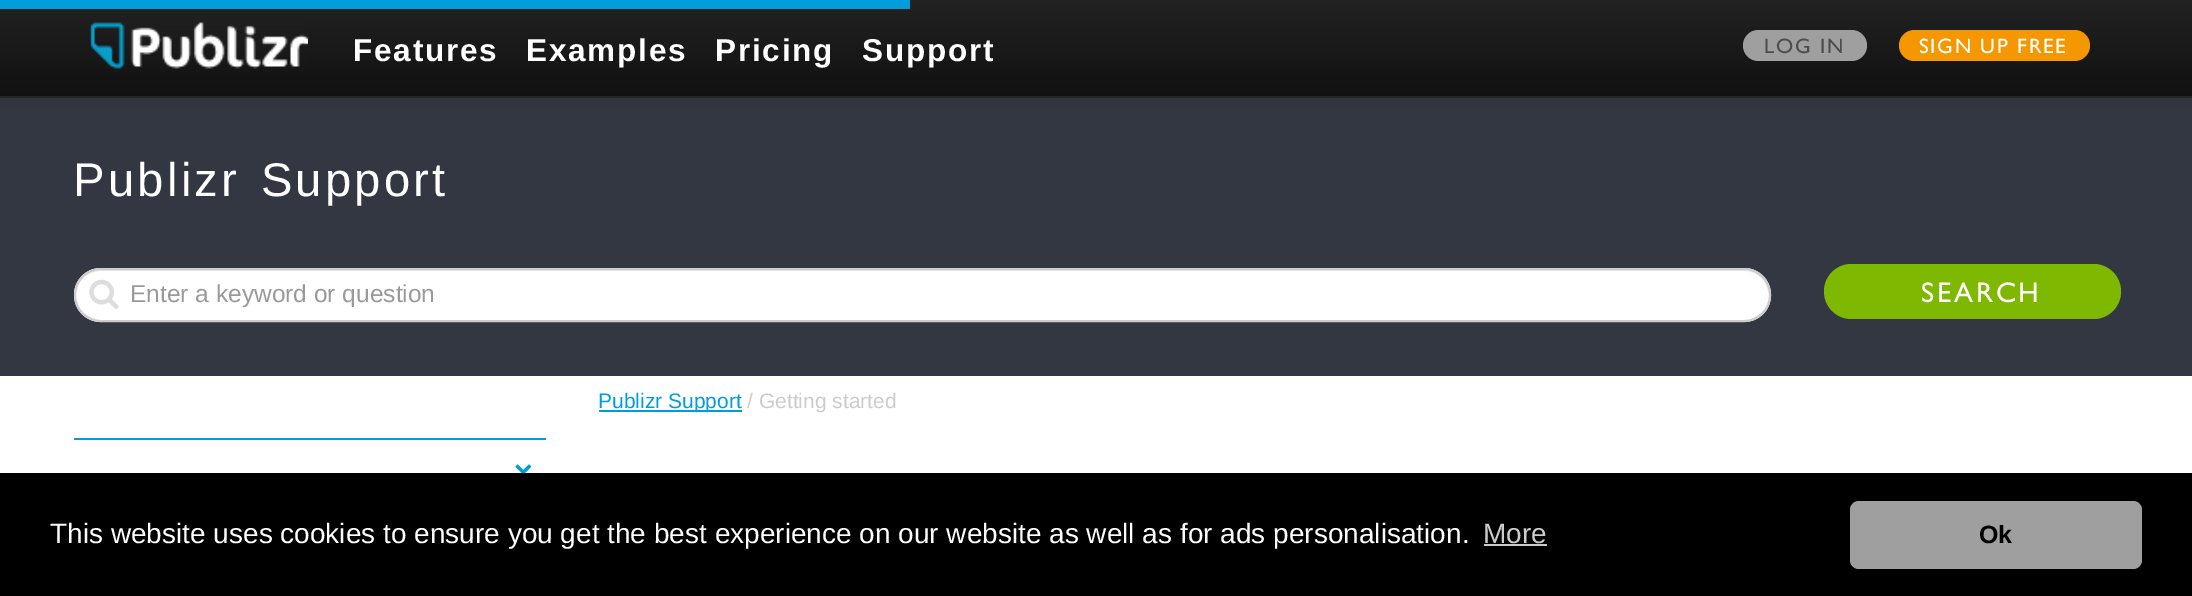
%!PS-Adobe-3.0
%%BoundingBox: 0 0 2192 596
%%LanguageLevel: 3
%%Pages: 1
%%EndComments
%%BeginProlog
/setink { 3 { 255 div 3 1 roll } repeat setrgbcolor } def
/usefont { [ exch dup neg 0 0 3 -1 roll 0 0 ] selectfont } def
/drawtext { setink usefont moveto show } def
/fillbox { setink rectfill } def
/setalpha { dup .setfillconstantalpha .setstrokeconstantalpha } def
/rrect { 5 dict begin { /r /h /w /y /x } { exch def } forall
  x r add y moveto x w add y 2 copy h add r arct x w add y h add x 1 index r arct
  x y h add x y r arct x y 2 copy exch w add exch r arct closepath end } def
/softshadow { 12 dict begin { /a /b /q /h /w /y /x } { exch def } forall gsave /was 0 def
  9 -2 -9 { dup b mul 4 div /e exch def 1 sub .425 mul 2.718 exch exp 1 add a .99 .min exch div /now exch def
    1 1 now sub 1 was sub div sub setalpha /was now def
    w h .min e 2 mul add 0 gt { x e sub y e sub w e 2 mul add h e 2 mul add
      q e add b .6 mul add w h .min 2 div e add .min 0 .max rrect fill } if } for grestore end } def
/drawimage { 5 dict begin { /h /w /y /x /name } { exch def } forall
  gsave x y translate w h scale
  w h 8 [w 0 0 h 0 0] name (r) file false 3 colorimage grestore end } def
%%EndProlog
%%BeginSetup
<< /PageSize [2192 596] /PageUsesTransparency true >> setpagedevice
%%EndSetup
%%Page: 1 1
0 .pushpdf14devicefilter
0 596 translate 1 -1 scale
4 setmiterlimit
0 0 2192 596 255 255 255 fillbox
0 98 2192 278 51 55 66 fillbox
0 0 0 setink
0 2 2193 98 0 9 0.1 softshadow
gsave 0 0 moveto 2192 0 lineto 2192 96 lineto 0 96 lineto closepath clip newpath
<< /ShadingType 2 /ColorSpace /DeviceRGB /Coords [1096 0 1096 96] /Extend [true true] /Function << /FunctionType 2 /Domain [0 1] /C0 [0.133 0.133 0.133] /C1 [0.067 0.067 0.067] /N 1 >> >> shfill grestore
0 0 910 9 0 157 220 fillbox
0 96 2192 2 37 37 37 fillbox
(assets/img1.rgb) 90 22 218 47 drawimage
/LiberationSans-Bold 31.5 usefont
255 255 255 setink
353 61 moveto 1.75 0 (Features) ashow
526 61 moveto 1.75 0 (Examples) ashow
715 61 moveto 1.75 0 (Pricing) ashow
862 61 moveto 1.75 0 (Support) ashow
159 159 159 setink
1743 30 124 31 15.5 rrect fill
/GillSans-Regular 21 usefont
77 77 77 setink
1764 53 moveto 1.75 0 (LOG IN) ashow
244 151 0 setink
1899 30 191 31 15.5 rrect fill
255 255 255 setink
1919 53 moveto 1.75 0 (SIGN UP FREE) ashow
/LiberationSans-Regular 47.25 usefont
73 196 moveto 4 0 32 3.25 0 (Publizr Support) awidthshow
74 268 1697 54 27 rrect fill
236 236 236 setink
101 271 moveto 1744 271 lineto 1758 271 1768 282 1769 296 curveto 1770 282 1758 270 1744 270 curveto 100 270 lineto 86 270 74 282 75 296 curveto 76 282 87 271 101 271 curveto closepath fill
204 204 204 setink
2 setlinewidth
75 269 1695 52 26 rrect stroke
(assets/img2.rgb) 89 279 30 30 drawimage
(Enter a keyword or question) 130 302 /LiberationSans-Regular 24.5 153 153 153 drawtext
127 184 0 setink
1824 264 297 55 27.5 rrect fill
/GillSans-Regular 28.5 usefont
255 255 255 setink
1921 302 moveto 2.75 0 (SEARCH) ashow
599 410 143 2 0 157 220 fillbox
(Publizr Support) 598 408 /LiberationSans-Regular 21 0 157 220 drawtext
(/ Getting started) 747 408 /LiberationSans-Regular 21 204 204 204 drawtext
74 438 472 2 0 157 220 fillbox
(assets/img3.rgb) 515 464 17 9 drawimage
0 473 2192 123 0 0 0 fillbox
(This website uses cookies to ensure you get the best experience on our website as well as for ads personalisation.) 50 543 /LiberationSans-Regular 28 255 255 255 drawtext
(More) 1483 543 /LiberationSans-Regular 28 204 204 204 drawtext
1484 544 63 2 204 204 204 fillbox
159 159 159 setink
1850 501 292 68 9 rrect fill
(Ok) 1979 543 /LiberationSans-Bold 25 0 0 0 drawtext
.poppdf14devicefilter showpage
%%EOF
